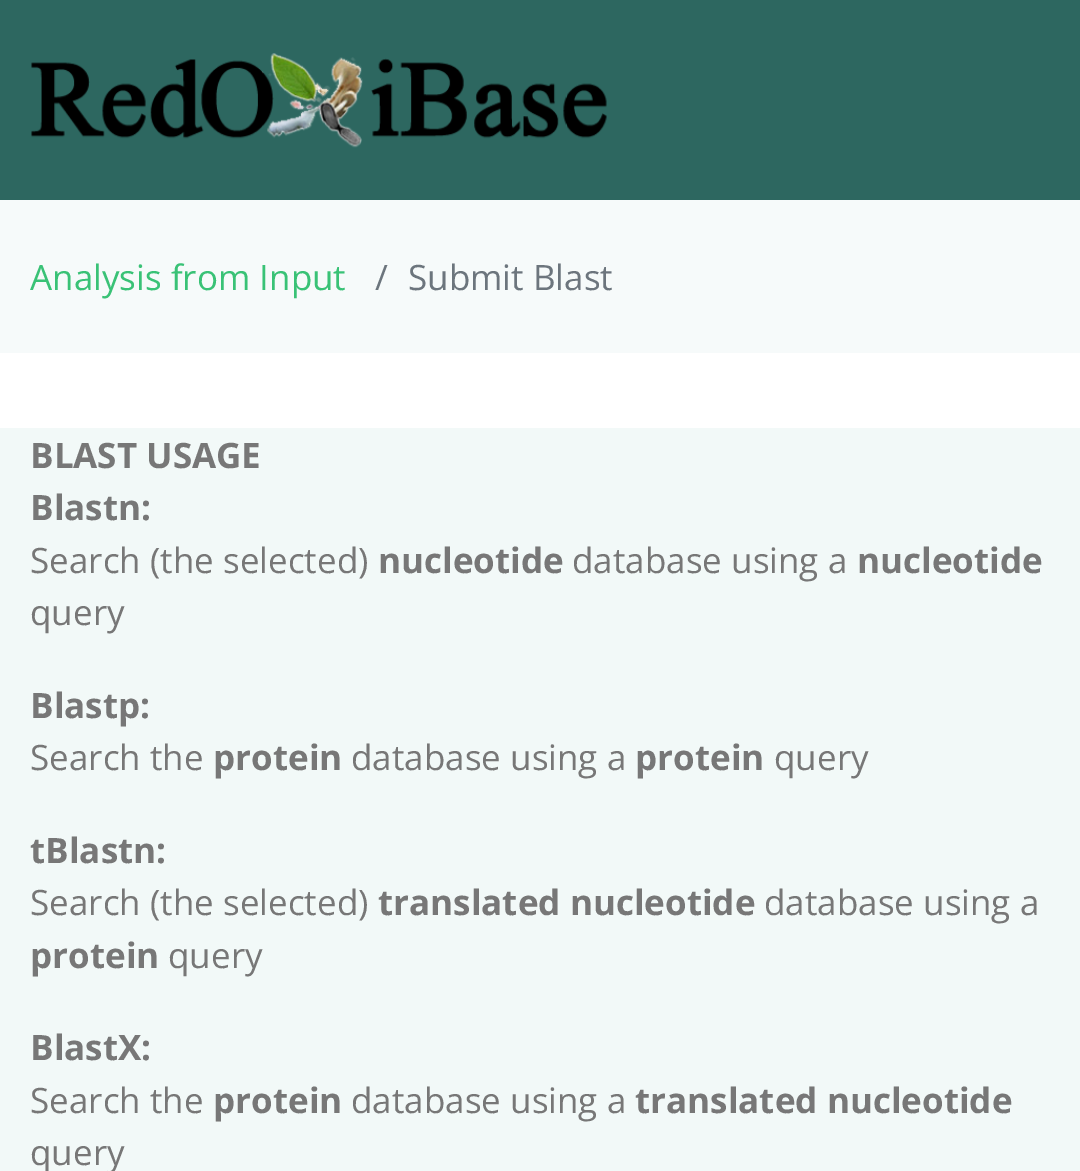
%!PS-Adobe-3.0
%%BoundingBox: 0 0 1080 1171
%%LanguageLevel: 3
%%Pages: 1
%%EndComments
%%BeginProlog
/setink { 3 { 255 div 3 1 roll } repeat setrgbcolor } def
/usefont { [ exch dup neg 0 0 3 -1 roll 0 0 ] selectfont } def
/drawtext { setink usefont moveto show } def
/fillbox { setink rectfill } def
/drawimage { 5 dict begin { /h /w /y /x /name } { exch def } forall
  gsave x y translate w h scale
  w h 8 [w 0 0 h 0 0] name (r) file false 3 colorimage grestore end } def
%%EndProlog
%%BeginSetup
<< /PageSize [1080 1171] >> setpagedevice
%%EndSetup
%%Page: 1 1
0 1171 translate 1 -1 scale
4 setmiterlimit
0 0 1080 1171 255 255 255 fillbox
0 0 1080 200 45 103 96 fillbox
(assets/img1.rgb) 31 53 576 95 drawimage
0 200 1080 153 246 250 250 fillbox
(Analysis from Input) 30 290 /OpenSans-Regular 35 57 194 118 drawtext
(/) 375 290 /OpenSans-Regular 35 108 117 125 drawtext
(Submit Blast) 408 290 /OpenSans-Regular 35 108 117 125 drawtext
0 428 1080 743 242 249 248 fillbox
(BLAST USAGE) 30 468 /OpenSans-Bold 35 119 119 119 drawtext
(Blastn:) 30 520 /OpenSans-Bold 35 119 119 119 drawtext
(Search \(the selected\)) 30 573 /OpenSans-Regular 35 119 119 119 drawtext
(nucleotide) 378 573 /OpenSans-Bold 35 119 119 119 drawtext
(database using a) 572 573 /OpenSans-Regular 35 119 119 119 drawtext
(nucleotide) 857 573 /OpenSans-Bold 35 119 119 119 drawtext
(query) 30 625 /OpenSans-Regular 35 119 119 119 drawtext
(Blastp:) 30 718 /OpenSans-Bold 35 119 119 119 drawtext
(Search the) 30 770 /OpenSans-Regular 35 119 119 119 drawtext
(protein) 213 770 /OpenSans-Bold 35 119 119 119 drawtext
(database using a) 351 770 /OpenSans-Regular 35 119 119 119 drawtext
(protein) 635 770 /OpenSans-Bold 35 119 119 119 drawtext
(query) 774 770 /OpenSans-Regular 35 119 119 119 drawtext
(tBlastn:) 30 863 /OpenSans-Bold 35 119 119 119 drawtext
(Search \(the selected\)) 30 915 /OpenSans-Regular 35 119 119 119 drawtext
(translated nucleotide) 378 915 /OpenSans-Bold 35 119 119 119 drawtext
(database using a) 764 915 /OpenSans-Regular 35 119 119 119 drawtext
(protein) 30 968 /OpenSans-Bold 35 119 119 119 drawtext
(query) 168 968 /OpenSans-Regular 35 119 119 119 drawtext
(BlastX:) 30 1060 /OpenSans-Bold 35 119 119 119 drawtext
(Search the) 30 1113 /OpenSans-Regular 35 119 119 119 drawtext
(protein) 213 1113 /OpenSans-Bold 35 119 119 119 drawtext
(database using a) 351 1113 /OpenSans-Regular 35 119 119 119 drawtext
(translated nucleotide) 635 1113 /OpenSans-Bold 35 119 119 119 drawtext
(query) 30 1165 /OpenSans-Regular 35 119 119 119 drawtext
showpage
%%EOF
